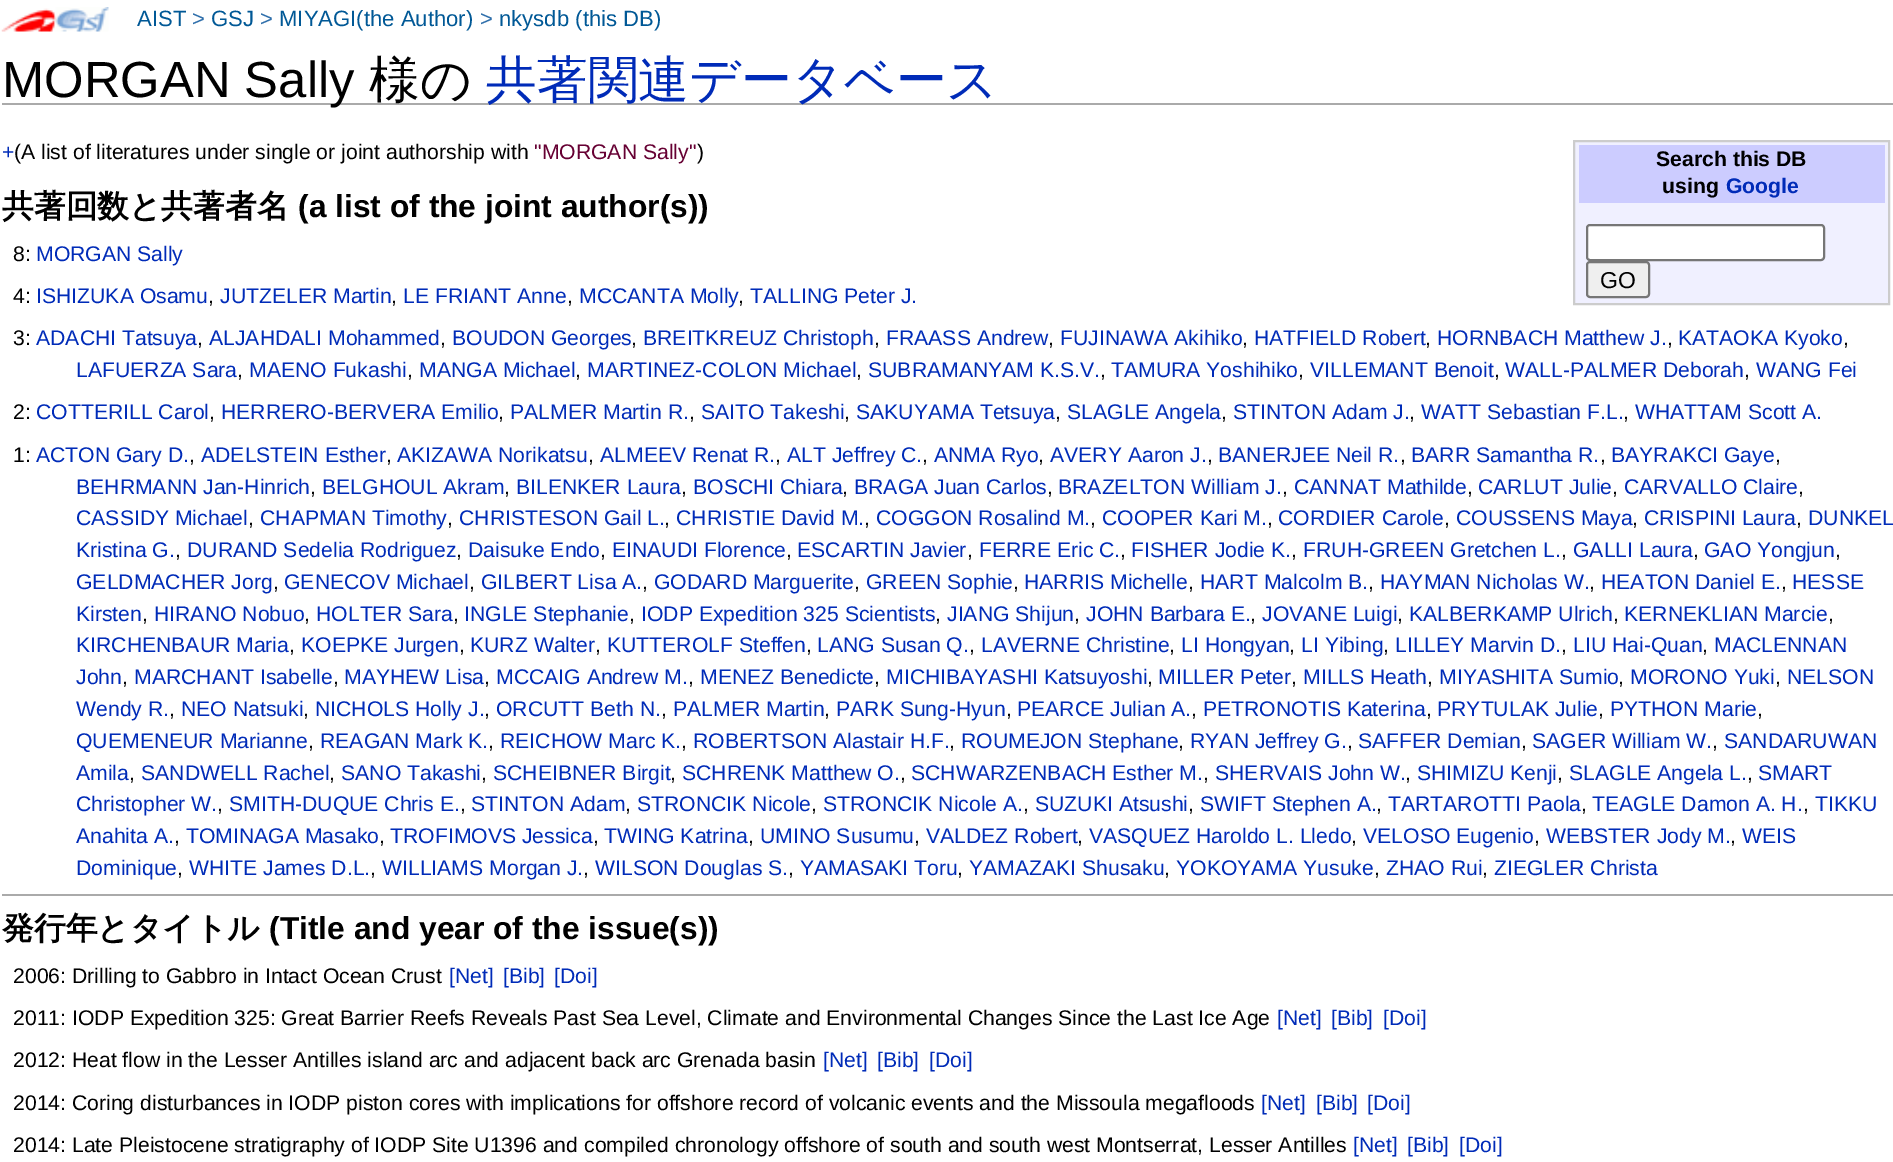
%!PS-Adobe-3.0
%%BoundingBox: 0 0 1893 1162
%%LanguageLevel: 3
%%Pages: 1
%%EndComments
%%BeginProlog
/setink { 3 { 255 div 3 1 roll } repeat setrgbcolor } def
/usefont { [ exch dup neg 0 0 3 -1 roll 0 0 ] selectfont } def
/drawtext { setink usefont moveto show } def
/fillbox { setink rectfill } def
/rrect { 5 dict begin { /r /h /w /y /x } { exch def } forall
  x r add y moveto x w add y 2 copy h add r arct x w add y h add x 1 index r arct
  x y h add x y r arct x y 2 copy exch w add exch r arct closepath end } def
/drawimage { 5 dict begin { /h /w /y /x /name } { exch def } forall
  gsave x y translate w h scale
  w h 8 [w 0 0 h 0 0] name (r) file false 3 colorimage grestore end } def
%%EndProlog
%%BeginSetup
<< /PageSize [1893 1162] >> setpagedevice
%%EndSetup
%%Page: 1 1
0 1162 translate 1 -1 scale
4 setmiterlimit
0 0 1893 1162 255 255 255 fillbox
(assets/img1.rgb) 1 7 108 25 drawimage
(AIST) 137 26 /LiberationSans-Regular 22.1 0 88 150 drawtext
(>) 192 26 /LiberationSans-Regular 22.1 47 111 171 drawtext
(GSJ) 211 26 /LiberationSans-Regular 22.1 0 88 150 drawtext
(>) 260 26 /LiberationSans-Regular 22.1 47 111 171 drawtext
(MIYAGI\(the Author\)) 279 26 /LiberationSans-Regular 22.1 0 88 150 drawtext
(>) 480 26 /LiberationSans-Regular 22.1 47 111 171 drawtext
(nkysdb \(this DB\)) 499 26 /LiberationSans-Regular 22.1 0 88 150 drawtext
2 103 1891 2 170 170 170 fillbox
(MORGAN Sally) 2 97 /LiberationSans-Regular 50.75 0 0 0 drawtext
(様の) 369 97 /WenQuanYiZenHei-Medium 50.75 0 0 0 drawtext
(共著関連データベース) 486 97 /WenQuanYiZenHei-Medium 50.75 0 43 184 drawtext
(+) 2 159 /LiberationSans-Regular 21.18 0 43 184 drawtext
(\(A list of literatures under single or joint authorship with) 14 159 /LiberationSans-Regular 21.18 0 0 0 drawtext
("MORGAN Sally") 534 159 /LiberationSans-Regular 21.18 102 0 51 drawtext
(\)) 697 159 /LiberationSans-Regular 21.18 0 0 0 drawtext
240 240 255 setink
1574 141 moveto 1889 141 lineto 1889 304 lineto 1574 304 lineto closepath gsave fill grestore
204 204 204 setink
2 setlinewidth
stroke
1579 145 306 58 204 204 255 fillbox
(Search this DB) 1656 166 /LiberationSans-Bold 21.18 0 0 0 drawtext
(using) 1662 193 /LiberationSans-Bold 21.18 0 0 0 drawtext
(Google) 1726 193 /LiberationSans-Bold 21.18 0 43 184 drawtext
255 255 255 setink
1587 225 237 35 3 rrect gsave fill grestore
118 118 118 setink
stroke
239 239 239 setink
1587 262 62 35 3 rrect gsave fill grestore
118 118 118 setink
stroke
(GO) 1600 288 /LiberationSans-Regular 23 0 0 0 drawtext
(共著回数と共著者名) 2 217 /WenQuanYiZenHei-Bold 31.75 0 0 0 drawtext
(\(a list of the joint author\(s\)\)) 298 217 /LiberationSans-Bold 31.75 0 0 0 drawtext
(8:) 13 261 /LiberationSans-Regular 21.18 0 0 0 drawtext
(MORGAN Sally) 36 261 /LiberationSans-Regular 21.18 0 43 184 drawtext
(4:) 13 303 /LiberationSans-Regular 21.18 0 0 0 drawtext
(ISHIZUKA Osamu) 36 303 /LiberationSans-Regular 21.18 0 43 184 drawtext
(,) 208 303 /LiberationSans-Regular 21.18 0 0 0 drawtext
(JUTZELER Martin) 220 303 /LiberationSans-Regular 21.18 0 43 184 drawtext
(,) 391 303 /LiberationSans-Regular 21.18 0 0 0 drawtext
(LE FRIANT Anne) 403 303 /LiberationSans-Regular 21.18 0 43 184 drawtext
(,) 567 303 /LiberationSans-Regular 21.18 0 0 0 drawtext
(MCCANTA Molly) 579 303 /LiberationSans-Regular 21.18 0 43 184 drawtext
(,) 738 303 /LiberationSans-Regular 21.18 0 0 0 drawtext
(TALLING Peter J.) 750 303 /LiberationSans-Regular 21.18 0 43 184 drawtext
(3:) 13 345 /LiberationSans-Regular 21.18 0 0 0 drawtext
(ADACHI Tatsuya) 36 345 /LiberationSans-Regular 21.18 0 43 184 drawtext
(,) 197 345 /LiberationSans-Regular 21.18 0 0 0 drawtext
(ALJAHDALI Mohammed) 209 345 /LiberationSans-Regular 21.18 0 43 184 drawtext
(,) 440 345 /LiberationSans-Regular 21.18 0 0 0 drawtext
(BOUDON Georges) 452 345 /LiberationSans-Regular 21.18 0 43 184 drawtext
(,) 631 345 /LiberationSans-Regular 21.18 0 0 0 drawtext
(BREITKREUZ Christoph) 643 345 /LiberationSans-Regular 21.18 0 43 184 drawtext
(,) 874 345 /LiberationSans-Regular 21.18 0 0 0 drawtext
(FRAASS Andrew) 886 345 /LiberationSans-Regular 21.18 0 43 184 drawtext
(,) 1048 345 /LiberationSans-Regular 21.18 0 0 0 drawtext
(FUJINAWA Akihiko) 1060 345 /LiberationSans-Regular 21.18 0 43 184 drawtext
(,) 1242 345 /LiberationSans-Regular 21.18 0 0 0 drawtext
(HATFIELD Robert) 1254 345 /LiberationSans-Regular 21.18 0 43 184 drawtext
(,) 1425 345 /LiberationSans-Regular 21.18 0 0 0 drawtext
(HORNBACH Matthew J.) 1437 345 /LiberationSans-Regular 21.18 0 43 184 drawtext
(,) 1667 345 /LiberationSans-Regular 21.18 0 0 0 drawtext
(KATAOKA Kyoko) 1678 345 /LiberationSans-Regular 21.18 0 43 184 drawtext
(,) 1843 345 /LiberationSans-Regular 21.18 0 0 0 drawtext
(LAFUERZA Sara) 76 377 /LiberationSans-Regular 21.18 0 43 184 drawtext
(,) 237 377 /LiberationSans-Regular 21.18 0 0 0 drawtext
(MAENO Fukashi) 249 377 /LiberationSans-Regular 21.18 0 43 184 drawtext
(,) 407 377 /LiberationSans-Regular 21.18 0 0 0 drawtext
(MANGA Michael) 419 377 /LiberationSans-Regular 21.18 0 43 184 drawtext
(,) 575 377 /LiberationSans-Regular 21.18 0 0 0 drawtext
(MARTINEZ-COLON Michael) 587 377 /LiberationSans-Regular 21.18 0 43 184 drawtext
(,) 856 377 /LiberationSans-Regular 21.18 0 0 0 drawtext
(SUBRAMANYAM K.S.V.) 868 377 /LiberationSans-Regular 21.18 0 43 184 drawtext
(,) 1100 377 /LiberationSans-Regular 21.18 0 0 0 drawtext
(TAMURA Yoshihiko) 1111 377 /LiberationSans-Regular 21.18 0 43 184 drawtext
(,) 1298 377 /LiberationSans-Regular 21.18 0 0 0 drawtext
(VILLEMANT Benoit) 1310 377 /LiberationSans-Regular 21.18 0 43 184 drawtext
(,) 1494 377 /LiberationSans-Regular 21.18 0 0 0 drawtext
(WALL-PALMER Deborah) 1505 377 /LiberationSans-Regular 21.18 0 43 184 drawtext
(,) 1744 377 /LiberationSans-Regular 21.18 0 0 0 drawtext
(WANG Fei) 1756 377 /LiberationSans-Regular 21.18 0 43 184 drawtext
(2:) 13 419 /LiberationSans-Regular 21.18 0 0 0 drawtext
(COTTERILL Carol) 36 419 /LiberationSans-Regular 21.18 0 43 184 drawtext
(,) 209 419 /LiberationSans-Regular 21.18 0 0 0 drawtext
(HERRERO-BERVERA Emilio) 221 419 /LiberationSans-Regular 21.18 0 43 184 drawtext
(,) 498 419 /LiberationSans-Regular 21.18 0 0 0 drawtext
(PALMER Martin R.) 510 419 /LiberationSans-Regular 21.18 0 43 184 drawtext
(,) 689 419 /LiberationSans-Regular 21.18 0 0 0 drawtext
(SAITO Takeshi) 701 419 /LiberationSans-Regular 21.18 0 43 184 drawtext
(,) 844 419 /LiberationSans-Regular 21.18 0 0 0 drawtext
(SAKUYAMA Tetsuya) 856 419 /LiberationSans-Regular 21.18 0 43 184 drawtext
(,) 1055 419 /LiberationSans-Regular 21.18 0 0 0 drawtext
(SLAGLE Angela) 1067 419 /LiberationSans-Regular 21.18 0 43 184 drawtext
(,) 1221 419 /LiberationSans-Regular 21.18 0 0 0 drawtext
(STINTON Adam J.) 1233 419 /LiberationSans-Regular 21.18 0 43 184 drawtext
(,) 1409 419 /LiberationSans-Regular 21.18 0 0 0 drawtext
(WATT Sebastian F.L.) 1421 419 /LiberationSans-Regular 21.18 0 43 184 drawtext
(,) 1623 419 /LiberationSans-Regular 21.18 0 0 0 drawtext
(WHATTAM Scott A.) 1635 419 /LiberationSans-Regular 21.18 0 43 184 drawtext
(1:) 13 462 /LiberationSans-Regular 21.18 0 0 0 drawtext
(ACTON Gary D.) 36 462 /LiberationSans-Regular 21.18 0 43 184 drawtext
(,) 189 462 /LiberationSans-Regular 21.18 0 0 0 drawtext
(ADELSTEIN Esther) 201 462 /LiberationSans-Regular 21.18 0 43 184 drawtext
(,) 386 462 /LiberationSans-Regular 21.18 0 0 0 drawtext
(AKIZAWA Norikatsu) 397 462 /LiberationSans-Regular 21.18 0 43 184 drawtext
(,) 588 462 /LiberationSans-Regular 21.18 0 0 0 drawtext
(ALMEEV Renat R.) 600 462 /LiberationSans-Regular 21.18 0 43 184 drawtext
(,) 775 462 /LiberationSans-Regular 21.18 0 0 0 drawtext
(ALT Jeffrey C.) 787 462 /LiberationSans-Regular 21.18 0 43 184 drawtext
(,) 922 462 /LiberationSans-Regular 21.18 0 0 0 drawtext
(ANMA Ryo) 934 462 /LiberationSans-Regular 21.18 0 43 184 drawtext
(,) 1038 462 /LiberationSans-Regular 21.18 0 0 0 drawtext
(AVERY Aaron J.) 1050 462 /LiberationSans-Regular 21.18 0 43 184 drawtext
(,) 1207 462 /LiberationSans-Regular 21.18 0 0 0 drawtext
(BANERJEE Neil R.) 1218 462 /LiberationSans-Regular 21.18 0 43 184 drawtext
(,) 1400 462 /LiberationSans-Regular 21.18 0 0 0 drawtext
(BARR Samantha R.) 1411 462 /LiberationSans-Regular 21.18 0 43 184 drawtext
(,) 1600 462 /LiberationSans-Regular 21.18 0 0 0 drawtext
(BAYRAKCI Gaye) 1611 462 /LiberationSans-Regular 21.18 0 43 184 drawtext
(,) 1775 462 /LiberationSans-Regular 21.18 0 0 0 drawtext
(BEHRMANN Jan-Hinrich) 76 494 /LiberationSans-Regular 21.18 0 43 184 drawtext
(,) 310 494 /LiberationSans-Regular 21.18 0 0 0 drawtext
(BELGHOUL Akram) 322 494 /LiberationSans-Regular 21.18 0 43 184 drawtext
(,) 504 494 /LiberationSans-Regular 21.18 0 0 0 drawtext
(BILENKER Laura) 516 494 /LiberationSans-Regular 21.18 0 43 184 drawtext
(,) 681 494 /LiberationSans-Regular 21.18 0 0 0 drawtext
(BOSCHI Chiara) 693 494 /LiberationSans-Regular 21.18 0 43 184 drawtext
(,) 842 494 /LiberationSans-Regular 21.18 0 0 0 drawtext
(BRAGA Juan Carlos) 854 494 /LiberationSans-Regular 21.18 0 43 184 drawtext
(,) 1047 494 /LiberationSans-Regular 21.18 0 0 0 drawtext
(BRAZELTON William J.) 1058 494 /LiberationSans-Regular 21.18 0 43 184 drawtext
(,) 1282 494 /LiberationSans-Regular 21.18 0 0 0 drawtext
(CANNAT Mathilde) 1294 494 /LiberationSans-Regular 21.18 0 43 184 drawtext
(,) 1467 494 /LiberationSans-Regular 21.18 0 0 0 drawtext
(CARLUT Julie) 1478 494 /LiberationSans-Regular 21.18 0 43 184 drawtext
(,) 1612 494 /LiberationSans-Regular 21.18 0 0 0 drawtext
(CARVALLO Claire) 1624 494 /LiberationSans-Regular 21.18 0 43 184 drawtext
(,) 1798 494 /LiberationSans-Regular 21.18 0 0 0 drawtext
(CASSIDY Michael) 76 525 /LiberationSans-Regular 21.18 0 43 184 drawtext
(,) 248 525 /LiberationSans-Regular 21.18 0 0 0 drawtext
(CHAPMAN Timothy) 260 525 /LiberationSans-Regular 21.18 0 43 184 drawtext
(,) 447 525 /LiberationSans-Regular 21.18 0 0 0 drawtext
(CHRISTESON Gail L.) 459 525 /LiberationSans-Regular 21.18 0 43 184 drawtext
(,) 664 525 /LiberationSans-Regular 21.18 0 0 0 drawtext
(CHRISTIE David M.) 676 525 /LiberationSans-Regular 21.18 0 43 184 drawtext
(,) 864 525 /LiberationSans-Regular 21.18 0 0 0 drawtext
(COGGON Rosalind M.) 876 525 /LiberationSans-Regular 21.18 0 43 184 drawtext
(,) 1090 525 /LiberationSans-Regular 21.18 0 0 0 drawtext
(COOPER Kari M.) 1102 525 /LiberationSans-Regular 21.18 0 43 184 drawtext
(,) 1267 525 /LiberationSans-Regular 21.18 0 0 0 drawtext
(CORDIER Carole) 1278 525 /LiberationSans-Regular 21.18 0 43 184 drawtext
(,) 1444 525 /LiberationSans-Regular 21.18 0 0 0 drawtext
(COUSSENS Maya) 1456 525 /LiberationSans-Regular 21.18 0 43 184 drawtext
(,) 1632 525 /LiberationSans-Regular 21.18 0 0 0 drawtext
(CRISPINI Laura) 1644 525 /LiberationSans-Regular 21.18 0 43 184 drawtext
(,) 1796 525 /LiberationSans-Regular 21.18 0 0 0 drawtext
(DUNKEL) 1808 525 /LiberationSans-Regular 21.18 0 43 184 drawtext
(Kristina G.) 76 557 /LiberationSans-Regular 21.18 0 43 184 drawtext
(,) 175 557 /LiberationSans-Regular 21.18 0 0 0 drawtext
(DURAND Sedelia Rodriguez) 187 557 /LiberationSans-Regular 21.18 0 43 184 drawtext
(,) 456 557 /LiberationSans-Regular 21.18 0 0 0 drawtext
(Daisuke Endo) 468 557 /LiberationSans-Regular 21.18 0 43 184 drawtext
(,) 600 557 /LiberationSans-Regular 21.18 0 0 0 drawtext
(EINAUDI Florence) 612 557 /LiberationSans-Regular 21.18 0 43 184 drawtext
(,) 786 557 /LiberationSans-Regular 21.18 0 0 0 drawtext
(ESCARTIN Javier) 797 557 /LiberationSans-Regular 21.18 0 43 184 drawtext
(,) 967 557 /LiberationSans-Regular 21.18 0 0 0 drawtext
(FERRE Eric C.) 979 557 /LiberationSans-Regular 21.18 0 43 184 drawtext
(,) 1120 557 /LiberationSans-Regular 21.18 0 0 0 drawtext
(FISHER Jodie K.) 1131 557 /LiberationSans-Regular 21.18 0 43 184 drawtext
(,) 1291 557 /LiberationSans-Regular 21.18 0 0 0 drawtext
(FRUH-GREEN Gretchen L.) 1303 557 /LiberationSans-Regular 21.18 0 43 184 drawtext
(,) 1561 557 /LiberationSans-Regular 21.18 0 0 0 drawtext
(GALLI Laura) 1573 557 /LiberationSans-Regular 21.18 0 43 184 drawtext
(,) 1693 557 /LiberationSans-Regular 21.18 0 0 0 drawtext
(GAO Yongjun) 1704 557 /LiberationSans-Regular 21.18 0 43 184 drawtext
(,) 1835 557 /LiberationSans-Regular 21.18 0 0 0 drawtext
(GELDMACHER Jorg) 76 589 /LiberationSans-Regular 21.18 0 43 184 drawtext
(,) 273 589 /LiberationSans-Regular 21.18 0 0 0 drawtext
(GENECOV Michael) 284 589 /LiberationSans-Regular 21.18 0 43 184 drawtext
(,) 469 589 /LiberationSans-Regular 21.18 0 0 0 drawtext
(GILBERT Lisa A.) 481 589 /LiberationSans-Regular 21.18 0 43 184 drawtext
(,) 642 589 /LiberationSans-Regular 21.18 0 0 0 drawtext
(GODARD Marguerite) 654 589 /LiberationSans-Regular 21.18 0 43 184 drawtext
(,) 854 589 /LiberationSans-Regular 21.18 0 0 0 drawtext
(GREEN Sophie) 866 589 /LiberationSans-Regular 21.18 0 43 184 drawtext
(,) 1013 589 /LiberationSans-Regular 21.18 0 0 0 drawtext
(HARRIS Michelle) 1024 589 /LiberationSans-Regular 21.18 0 43 184 drawtext
(,) 1188 589 /LiberationSans-Regular 21.18 0 0 0 drawtext
(HART Malcolm B.) 1200 589 /LiberationSans-Regular 21.18 0 43 184 drawtext
(,) 1368 589 /LiberationSans-Regular 21.18 0 0 0 drawtext
(HAYMAN Nicholas W.) 1380 589 /LiberationSans-Regular 21.18 0 43 184 drawtext
(,) 1589 589 /LiberationSans-Regular 21.18 0 0 0 drawtext
(HEATON Daniel E.) 1601 589 /LiberationSans-Regular 21.18 0 43 184 drawtext
(,) 1781 589 /LiberationSans-Regular 21.18 0 0 0 drawtext
(HESSE) 1792 589 /LiberationSans-Regular 21.18 0 43 184 drawtext
(Kirsten) 76 621 /LiberationSans-Regular 21.18 0 43 184 drawtext
(,) 142 621 /LiberationSans-Regular 21.18 0 0 0 drawtext
(HIRANO Nobuo) 154 621 /LiberationSans-Regular 21.18 0 43 184 drawtext
(,) 304 621 /LiberationSans-Regular 21.18 0 0 0 drawtext
(HOLTER Sara) 316 621 /LiberationSans-Regular 21.18 0 43 184 drawtext
(,) 453 621 /LiberationSans-Regular 21.18 0 0 0 drawtext
(INGLE Stephanie) 464 621 /LiberationSans-Regular 21.18 0 43 184 drawtext
(,) 629 621 /LiberationSans-Regular 21.18 0 0 0 drawtext
(IODP Expedition 325 Scientists) 641 621 /LiberationSans-Regular 21.18 0 43 184 drawtext
(,) 935 621 /LiberationSans-Regular 21.18 0 0 0 drawtext
(JIANG Shijun) 947 621 /LiberationSans-Regular 21.18 0 43 184 drawtext
(,) 1074 621 /LiberationSans-Regular 21.18 0 0 0 drawtext
(JOHN Barbara E.) 1086 621 /LiberationSans-Regular 21.18 0 43 184 drawtext
(,) 1250 621 /LiberationSans-Regular 21.18 0 0 0 drawtext
(JOVANE Luigi) 1262 621 /LiberationSans-Regular 21.18 0 43 184 drawtext
(,) 1397 621 /LiberationSans-Regular 21.18 0 0 0 drawtext
(KALBERKAMP Ulrich) 1409 621 /LiberationSans-Regular 21.18 0 43 184 drawtext
(,) 1613 621 /LiberationSans-Regular 21.18 0 0 0 drawtext
(KERNEKLIAN Marcie) 1624 621 /LiberationSans-Regular 21.18 0 43 184 drawtext
(,) 1828 621 /LiberationSans-Regular 21.18 0 0 0 drawtext
(KIRCHENBAUR Maria) 76 652 /LiberationSans-Regular 21.18 0 43 184 drawtext
(,) 289 652 /LiberationSans-Regular 21.18 0 0 0 drawtext
(KOEPKE Jurgen) 301 652 /LiberationSans-Regular 21.18 0 43 184 drawtext
(,) 459 652 /LiberationSans-Regular 21.18 0 0 0 drawtext
(KURZ Walter) 470 652 /LiberationSans-Regular 21.18 0 43 184 drawtext
(,) 595 652 /LiberationSans-Regular 21.18 0 0 0 drawtext
(KUTTEROLF Steffen) 607 652 /LiberationSans-Regular 21.18 0 43 184 drawtext
(,) 806 652 /LiberationSans-Regular 21.18 0 0 0 drawtext
(LANG Susan Q.) 817 652 /LiberationSans-Regular 21.18 0 43 184 drawtext
(,) 969 652 /LiberationSans-Regular 21.18 0 0 0 drawtext
(LAVERNE Christine) 981 652 /LiberationSans-Regular 21.18 0 43 184 drawtext
(,) 1169 652 /LiberationSans-Regular 21.18 0 0 0 drawtext
(LI Hongyan) 1181 652 /LiberationSans-Regular 21.18 0 43 184 drawtext
(,) 1289 652 /LiberationSans-Regular 21.18 0 0 0 drawtext
(LI Yibing) 1301 652 /LiberationSans-Regular 21.18 0 43 184 drawtext
(,) 1383 652 /LiberationSans-Regular 21.18 0 0 0 drawtext
(LILLEY Marvin D.) 1395 652 /LiberationSans-Regular 21.18 0 43 184 drawtext
(,) 1561 652 /LiberationSans-Regular 21.18 0 0 0 drawtext
(LIU Hai-Quan) 1573 652 /LiberationSans-Regular 21.18 0 43 184 drawtext
(,) 1702 652 /LiberationSans-Regular 21.18 0 0 0 drawtext
(MACLENNAN) 1714 652 /LiberationSans-Regular 21.18 0 43 184 drawtext
(John) 76 684 /LiberationSans-Regular 21.18 0 43 184 drawtext
(,) 122 684 /LiberationSans-Regular 21.18 0 0 0 drawtext
(MARCHANT Isabelle) 134 684 /LiberationSans-Regular 21.18 0 43 184 drawtext
(,) 333 684 /LiberationSans-Regular 21.18 0 0 0 drawtext
(MAYHEW Lisa) 344 684 /LiberationSans-Regular 21.18 0 43 184 drawtext
(,) 484 684 /LiberationSans-Regular 21.18 0 0 0 drawtext
(MCCAIG Andrew M.) 496 684 /LiberationSans-Regular 21.18 0 43 184 drawtext
(,) 688 684 /LiberationSans-Regular 21.18 0 0 0 drawtext
(MENEZ Benedicte) 700 684 /LiberationSans-Regular 21.18 0 43 184 drawtext
(,) 874 684 /LiberationSans-Regular 21.18 0 0 0 drawtext
(MICHIBAYASHI Katsuyoshi) 886 684 /LiberationSans-Regular 21.18 0 43 184 drawtext
(,) 1147 684 /LiberationSans-Regular 21.18 0 0 0 drawtext
(MILLER Peter) 1158 684 /LiberationSans-Regular 21.18 0 43 184 drawtext
(,) 1291 684 /LiberationSans-Regular 21.18 0 0 0 drawtext
(MILLS Heath) 1303 684 /LiberationSans-Regular 21.18 0 43 184 drawtext
(,) 1427 684 /LiberationSans-Regular 21.18 0 0 0 drawtext
(MIYASHITA Sumio) 1439 684 /LiberationSans-Regular 21.18 0 43 184 drawtext
(,) 1618 684 /LiberationSans-Regular 21.18 0 0 0 drawtext
(MORONO Yuki) 1630 684 /LiberationSans-Regular 21.18 0 43 184 drawtext
(,) 1775 684 /LiberationSans-Regular 21.18 0 0 0 drawtext
(NELSON) 1787 684 /LiberationSans-Regular 21.18 0 43 184 drawtext
(Wendy R.) 76 716 /LiberationSans-Regular 21.18 0 43 184 drawtext
(,) 169 716 /LiberationSans-Regular 21.18 0 0 0 drawtext
(NEO Natsuki) 181 716 /LiberationSans-Regular 21.18 0 43 184 drawtext
(,) 303 716 /LiberationSans-Regular 21.18 0 0 0 drawtext
(NICHOLS Holly J.) 315 716 /LiberationSans-Regular 21.18 0 43 184 drawtext
(,) 484 716 /LiberationSans-Regular 21.18 0 0 0 drawtext
(ORCUTT Beth N.) 496 716 /LiberationSans-Regular 21.18 0 43 184 drawtext
(,) 661 716 /LiberationSans-Regular 21.18 0 0 0 drawtext
(PALMER Martin) 673 716 /LiberationSans-Regular 21.18 0 43 184 drawtext
(,) 824 716 /LiberationSans-Regular 21.18 0 0 0 drawtext
(PARK Sung-Hyun) 836 716 /LiberationSans-Regular 21.18 0 43 184 drawtext
(,) 1006 716 /LiberationSans-Regular 21.18 0 0 0 drawtext
(PEARCE Julian A.) 1017 716 /LiberationSans-Regular 21.18 0 43 184 drawtext
(,) 1191 716 /LiberationSans-Regular 21.18 0 0 0 drawtext
(PETRONOTIS Katerina) 1203 716 /LiberationSans-Regular 21.18 0 43 184 drawtext
(,) 1426 716 /LiberationSans-Regular 21.18 0 0 0 drawtext
(PRYTULAK Julie) 1437 716 /LiberationSans-Regular 21.18 0 43 184 drawtext
(,) 1598 716 /LiberationSans-Regular 21.18 0 0 0 drawtext
(PYTHON Marie) 1610 716 /LiberationSans-Regular 21.18 0 43 184 drawtext
(,) 1757 716 /LiberationSans-Regular 21.18 0 0 0 drawtext
(QUEMENEUR Marianne) 76 748 /LiberationSans-Regular 21.18 0 43 184 drawtext
(,) 308 748 /LiberationSans-Regular 21.18 0 0 0 drawtext
(REAGAN Mark K.) 320 748 /LiberationSans-Regular 21.18 0 43 184 drawtext
(,) 488 748 /LiberationSans-Regular 21.18 0 0 0 drawtext
(REICHOW Marc K.) 500 748 /LiberationSans-Regular 21.18 0 43 184 drawtext
(,) 681 748 /LiberationSans-Regular 21.18 0 0 0 drawtext
(ROBERTSON Alastair H.F.) 693 748 /LiberationSans-Regular 21.18 0 43 184 drawtext
(,) 949 748 /LiberationSans-Regular 21.18 0 0 0 drawtext
(ROUMEJON Stephane) 961 748 /LiberationSans-Regular 21.18 0 43 184 drawtext
(,) 1178 748 /LiberationSans-Regular 21.18 0 0 0 drawtext
(RYAN Jeffrey G.) 1190 748 /LiberationSans-Regular 21.18 0 43 184 drawtext
(,) 1347 748 /LiberationSans-Regular 21.18 0 0 0 drawtext
(SAFFER Demian) 1358 748 /LiberationSans-Regular 21.18 0 43 184 drawtext
(,) 1521 748 /LiberationSans-Regular 21.18 0 0 0 drawtext
(SAGER William W.) 1532 748 /LiberationSans-Regular 21.18 0 43 184 drawtext
(,) 1712 748 /LiberationSans-Regular 21.18 0 0 0 drawtext
(SANDARUWAN) 1724 748 /LiberationSans-Regular 21.18 0 43 184 drawtext
(Amila) 76 780 /LiberationSans-Regular 21.18 0 43 184 drawtext
(,) 129 780 /LiberationSans-Regular 21.18 0 0 0 drawtext
(SANDWELL Rachel) 141 780 /LiberationSans-Regular 21.18 0 43 184 drawtext
(,) 329 780 /LiberationSans-Regular 21.18 0 0 0 drawtext
(SANO Takashi) 341 780 /LiberationSans-Regular 21.18 0 43 184 drawtext
(,) 481 780 /LiberationSans-Regular 21.18 0 0 0 drawtext
(SCHEIBNER Birgit) 493 780 /LiberationSans-Regular 21.18 0 43 184 drawtext
(,) 670 780 /LiberationSans-Regular 21.18 0 0 0 drawtext
(SCHRENK Matthew O.) 682 780 /LiberationSans-Regular 21.18 0 43 184 drawtext
(,) 900 780 /LiberationSans-Regular 21.18 0 0 0 drawtext
(SCHWARZENBACH Esther M.) 911 780 /LiberationSans-Regular 21.18 0 43 184 drawtext
(,) 1203 780 /LiberationSans-Regular 21.18 0 0 0 drawtext
(SHERVAIS John W.) 1215 780 /LiberationSans-Regular 21.18 0 43 184 drawtext
(,) 1405 780 /LiberationSans-Regular 21.18 0 0 0 drawtext
(SHIMIZU Kenji) 1417 780 /LiberationSans-Regular 21.18 0 43 184 drawtext
(,) 1557 780 /LiberationSans-Regular 21.18 0 0 0 drawtext
(SLAGLE Angela L.) 1569 780 /LiberationSans-Regular 21.18 0 43 184 drawtext
(,) 1747 780 /LiberationSans-Regular 21.18 0 0 0 drawtext
(SMART) 1758 780 /LiberationSans-Regular 21.18 0 43 184 drawtext
(Christopher W.) 76 811 /LiberationSans-Regular 21.18 0 43 184 drawtext
(,) 217 811 /LiberationSans-Regular 21.18 0 0 0 drawtext
(SMITH-DUQUE Chris E.) 229 811 /LiberationSans-Regular 21.18 0 43 184 drawtext
(,) 460 811 /LiberationSans-Regular 21.18 0 0 0 drawtext
(STINTON Adam) 471 811 /LiberationSans-Regular 21.18 0 43 184 drawtext
(,) 625 811 /LiberationSans-Regular 21.18 0 0 0 drawtext
(STRONCIK Nicole) 637 811 /LiberationSans-Regular 21.18 0 43 184 drawtext
(,) 811 811 /LiberationSans-Regular 21.18 0 0 0 drawtext
(STRONCIK Nicole A.) 823 811 /LiberationSans-Regular 21.18 0 43 184 drawtext
(,) 1023 811 /LiberationSans-Regular 21.18 0 0 0 drawtext
(SUZUKI Atsushi) 1035 811 /LiberationSans-Regular 21.18 0 43 184 drawtext
(,) 1188 811 /LiberationSans-Regular 21.18 0 0 0 drawtext
(SWIFT Stephen A.) 1200 811 /LiberationSans-Regular 21.18 0 43 184 drawtext
(,) 1376 811 /LiberationSans-Regular 21.18 0 0 0 drawtext
(TARTAROTTI Paola) 1388 811 /LiberationSans-Regular 21.18 0 43 184 drawtext
(,) 1581 811 /LiberationSans-Regular 21.18 0 0 0 drawtext
(TEAGLE Damon A. H.) 1592 811 /LiberationSans-Regular 21.18 0 43 184 drawtext
(,) 1803 811 /LiberationSans-Regular 21.18 0 0 0 drawtext
(TIKKU) 1815 811 /LiberationSans-Regular 21.18 0 43 184 drawtext
(Anahita A.) 76 843 /LiberationSans-Regular 21.18 0 43 184 drawtext
(,) 174 843 /LiberationSans-Regular 21.18 0 0 0 drawtext
(TOMINAGA Masako) 186 843 /LiberationSans-Regular 21.18 0 43 184 drawtext
(,) 379 843 /LiberationSans-Regular 21.18 0 0 0 drawtext
(TROFIMOVS Jessica) 390 843 /LiberationSans-Regular 21.18 0 43 184 drawtext
(,) 593 843 /LiberationSans-Regular 21.18 0 0 0 drawtext
(TWING Katrina) 604 843 /LiberationSans-Regular 21.18 0 43 184 drawtext
(,) 748 843 /LiberationSans-Regular 21.18 0 0 0 drawtext
(UMINO Susumu) 760 843 /LiberationSans-Regular 21.18 0 43 184 drawtext
(,) 914 843 /LiberationSans-Regular 21.18 0 0 0 drawtext
(VALDEZ Robert) 926 843 /LiberationSans-Regular 21.18 0 43 184 drawtext
(,) 1077 843 /LiberationSans-Regular 21.18 0 0 0 drawtext
(VASQUEZ Haroldo L. Lledo) 1089 843 /LiberationSans-Regular 21.18 0 43 184 drawtext
(,) 1351 843 /LiberationSans-Regular 21.18 0 0 0 drawtext
(VELOSO Eugenio) 1363 843 /LiberationSans-Regular 21.18 0 43 184 drawtext
(,) 1534 843 /LiberationSans-Regular 21.18 0 0 0 drawtext
(WEBSTER Jody M.) 1546 843 /LiberationSans-Regular 21.18 0 43 184 drawtext
(,) 1730 843 /LiberationSans-Regular 21.18 0 0 0 drawtext
(WEIS) 1742 843 /LiberationSans-Regular 21.18 0 43 184 drawtext
(Dominique) 76 875 /LiberationSans-Regular 21.18 0 43 184 drawtext
(,) 177 875 /LiberationSans-Regular 21.18 0 0 0 drawtext
(WHITE James D.L.) 189 875 /LiberationSans-Regular 21.18 0 43 184 drawtext
(,) 370 875 /LiberationSans-Regular 21.18 0 0 0 drawtext
(WILLIAMS Morgan J.) 382 875 /LiberationSans-Regular 21.18 0 43 184 drawtext
(,) 583 875 /LiberationSans-Regular 21.18 0 0 0 drawtext
(WILSON Douglas S.) 595 875 /LiberationSans-Regular 21.18 0 43 184 drawtext
(,) 788 875 /LiberationSans-Regular 21.18 0 0 0 drawtext
(YAMASAKI Toru) 800 875 /LiberationSans-Regular 21.18 0 43 184 drawtext
(,) 957 875 /LiberationSans-Regular 21.18 0 0 0 drawtext
(YAMAZAKI Shusaku) 969 875 /LiberationSans-Regular 21.18 0 43 184 drawtext
(,) 1164 875 /LiberationSans-Regular 21.18 0 0 0 drawtext
(YOKOYAMA Yusuke) 1176 875 /LiberationSans-Regular 21.18 0 43 184 drawtext
(,) 1374 875 /LiberationSans-Regular 21.18 0 0 0 drawtext
(ZHAO Rui) 1386 875 /LiberationSans-Regular 21.18 0 43 184 drawtext
(,) 1482 875 /LiberationSans-Regular 21.18 0 0 0 drawtext
(ZIEGLER Christa) 1494 875 /LiberationSans-Regular 21.18 0 43 184 drawtext
2 894 1891 2 170 170 170 fillbox
(発行年とタイトル) 2 939 /WenQuanYiZenHei-Bold 31.75 0 0 0 drawtext
(\(Title and year of the issue\(s\)\)) 269 939 /LiberationSans-Bold 31.75 0 0 0 drawtext
(2006: Drilling to Gabbro in Intact Ocean Crust) 13 983 /LiberationSans-Regular 21.18 0 0 0 drawtext
([Net]) 449 983 /LiberationSans-Regular 21.18 0 43 184 drawtext
([Bib]) 503 983 /LiberationSans-Regular 21.18 0 43 184 drawtext
([Doi]) 554 983 /LiberationSans-Regular 21.18 0 43 184 drawtext
(2011: IODP Expedition 325: Great Barrier Reefs Reveals Past Sea Level, Climate and Environmental Changes Since the Last Ice Age) 13 1025 /LiberationSans-Regular 21.18 0 0 0 drawtext
([Net]) 1277 1025 /LiberationSans-Regular 21.18 0 43 184 drawtext
([Bib]) 1331 1025 /LiberationSans-Regular 21.18 0 43 184 drawtext
([Doi]) 1383 1025 /LiberationSans-Regular 21.18 0 43 184 drawtext
(2012: Heat flow in the Lesser Antilles island arc and adjacent back arc Grenada basin) 13 1067 /LiberationSans-Regular 21.18 0 0 0 drawtext
([Net]) 823 1067 /LiberationSans-Regular 21.18 0 43 184 drawtext
([Bib]) 877 1067 /LiberationSans-Regular 21.18 0 43 184 drawtext
([Doi]) 929 1067 /LiberationSans-Regular 21.18 0 43 184 drawtext
(2014: Coring disturbances in IODP piston cores with implications for offshore record of volcanic events and the Missoula megafloods) 13 1110 /LiberationSans-Regular 21.18 0 0 0 drawtext
([Net]) 1261 1110 /LiberationSans-Regular 21.18 0 43 184 drawtext
([Bib]) 1316 1110 /LiberationSans-Regular 21.18 0 43 184 drawtext
([Doi]) 1367 1110 /LiberationSans-Regular 21.18 0 43 184 drawtext
(2014: Late Pleistocene stratigraphy of IODP Site U1396 and compiled chronology offshore of south and south west Montserrat, Lesser Antilles) 13 1152 /LiberationSans-Regular 21.18 0 0 0 drawtext
([Net]) 1353 1152 /LiberationSans-Regular 21.18 0 43 184 drawtext
([Bib]) 1407 1152 /LiberationSans-Regular 21.18 0 43 184 drawtext
([Doi]) 1459 1152 /LiberationSans-Regular 21.18 0 43 184 drawtext
showpage
%%EOF
